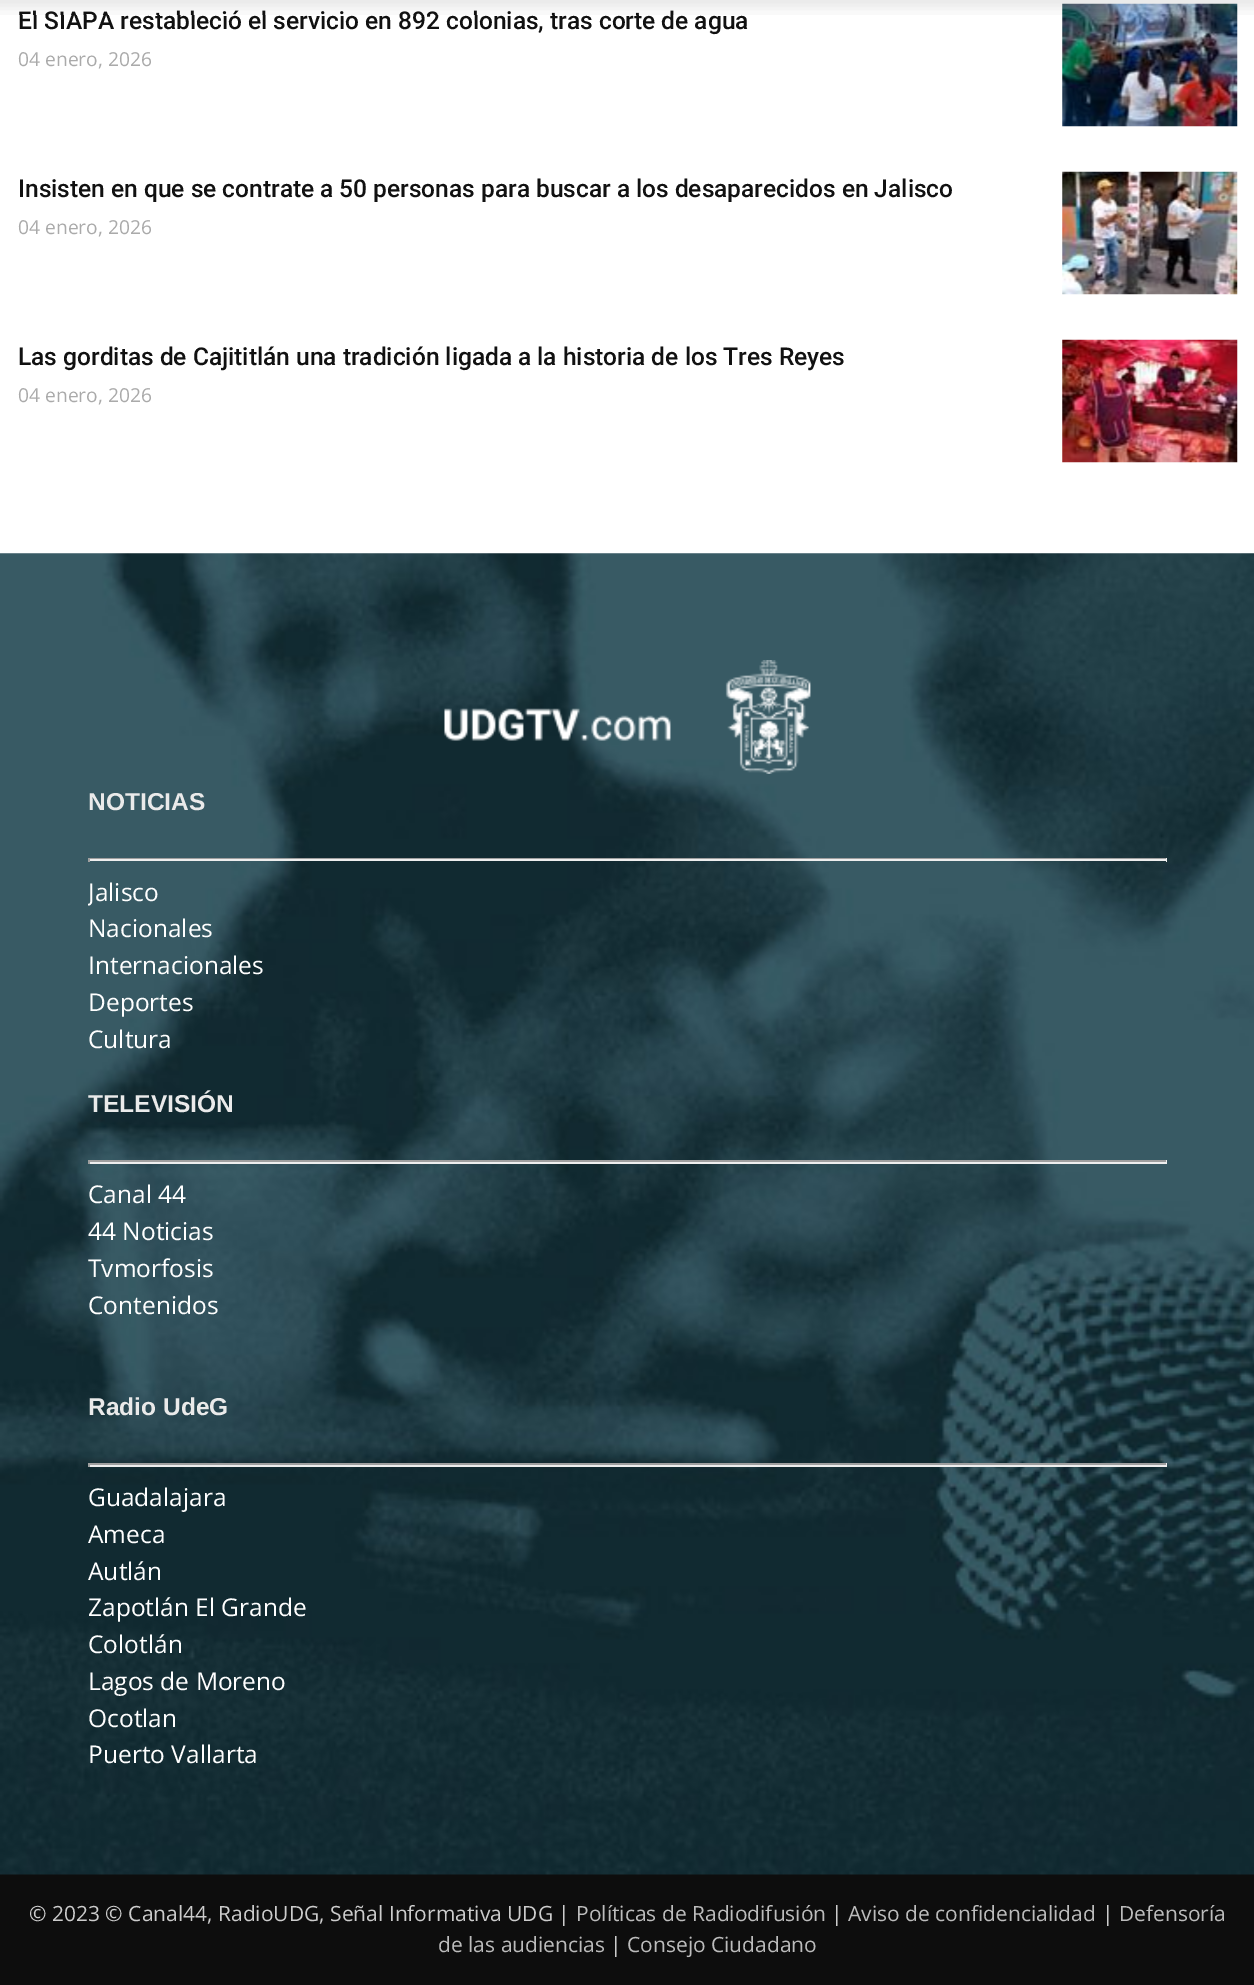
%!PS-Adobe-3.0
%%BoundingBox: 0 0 1254 1985
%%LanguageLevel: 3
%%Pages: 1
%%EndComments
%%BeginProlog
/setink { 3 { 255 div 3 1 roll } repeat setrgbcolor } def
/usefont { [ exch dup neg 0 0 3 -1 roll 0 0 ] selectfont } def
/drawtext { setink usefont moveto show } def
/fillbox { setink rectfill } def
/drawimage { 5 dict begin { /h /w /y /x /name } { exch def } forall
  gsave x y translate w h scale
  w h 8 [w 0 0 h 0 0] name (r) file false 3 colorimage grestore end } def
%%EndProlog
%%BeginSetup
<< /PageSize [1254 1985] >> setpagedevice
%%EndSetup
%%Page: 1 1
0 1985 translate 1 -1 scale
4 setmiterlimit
0 0 1254 1985 255 255 255 fillbox
(El SIAPA restableció el servicio en 892 colonias, tras corte de agua) 18 29 /Roboto-Medium 24.5 17 17 17 drawtext
(assets/img2.rgb) 1062 3 176 124 drawimage
(assets/img1.rgb) 0 0 1254 15 drawimage
(04 enero, 2026) 18 66 /OpenSans-Regular 19.25 170 170 170 drawtext
(Insisten en que se contrate a 50 personas para buscar a los desaparecidos en Jalisco) 18 197 /Roboto-Medium 24.5 17 17 17 drawtext
(04 enero, 2026) 18 234 /OpenSans-Regular 19.25 170 170 170 drawtext
(assets/img3.rgb) 1062 171 176 124 drawimage
(Las gorditas de Cajititlán una tradición ligada a la historia de los Tres Reyes) 18 365 /Roboto-Medium 24.5 17 17 17 drawtext
(04 enero, 2026) 18 402 /OpenSans-Regular 19.25 170 170 170 drawtext
(assets/img4.rgb) 1062 339 176 124 drawimage
0 1874 1254 111 13 13 13 fillbox
(assets/img5.rgb) 0 553 1254 1322 drawimage
(assets/img6.rgb) 444 660 367 114 drawimage
(NOTICIAS) 88 810 /LiberationSans-Bold 24.5 234 234 234 drawtext
88 858 1079 1 159 159 159 fillbox
1166 858 1 4 238 238 238 fillbox
88 859 1079 2 238 238 238 fillbox
88 858 2 4 159 159 159 fillbox
gsave
88 784 1079 273 rectclip
(Jalisco) 88 901 /OpenSans-Regular 24.5 255 255 255 drawtext
grestore
(Nacionales) 88 937 /OpenSans-Regular 24.5 255 255 255 drawtext
(Internacionales) 88 974 /OpenSans-Regular 24.5 255 255 255 drawtext
(Deportes) 88 1011 /OpenSans-Regular 24.5 255 255 255 drawtext
(Cultura) 88 1048 /OpenSans-Regular 24.5 255 255 255 drawtext
gsave
88 1087 1079 273 rectclip
(TELEVISIÓN) 88 1112 /LiberationSans-Bold 24.5 234 234 234 drawtext
grestore
88 1160 1079 2 159 159 159 fillbox
1166 1160 1 4 238 238 238 fillbox
88 1162 1079 2 238 238 238 fillbox
88 1160 2 4 159 159 159 fillbox
(Canal 44) 88 1203 /OpenSans-Regular 24.5 255 255 255 drawtext
(44 Noticias) 88 1240 /OpenSans-Regular 24.5 255 255 255 drawtext
gsave
88 1087 1079 273 rectclip
(Tvmorfosis) 88 1277 /OpenSans-Regular 24.5 255 255 255 drawtext
grestore
(Contenidos) 88 1314 /OpenSans-Regular 24.5 255 255 255 drawtext
(Radio UdeG) 88 1415 /LiberationSans-Bold 24.5 234 234 234 drawtext
88 1463 1079 2 159 159 159 fillbox
1166 1463 1 4 238 238 238 fillbox
88 1465 1079 2 238 238 238 fillbox
88 1463 2 4 159 159 159 fillbox
(Guadalajara) 88 1506 /OpenSans-Regular 24.5 255 255 255 drawtext
(Ameca) 88 1543 /OpenSans-Regular 24.5 255 255 255 drawtext
(Autlán) 88 1580 /OpenSans-Regular 24.5 255 255 255 drawtext
(Zapotlán El Grande) 88 1616 /OpenSans-Regular 24.5 255 255 255 drawtext
(Colotlán) 88 1653 /OpenSans-Regular 24.5 255 255 255 drawtext
(Lagos de Moreno) 88 1690 /OpenSans-Regular 24.5 255 255 255 drawtext
(Ocotlan) 88 1727 /OpenSans-Regular 24.5 255 255 255 drawtext
(Puerto Vallarta) 88 1763 /OpenSans-Regular 24.5 255 255 255 drawtext
(© 2023 © Canal44, RadioUDG, Señal Informativa UDG |) 29 1921 /OpenSans-Regular 21 204 204 204 drawtext
(Políticas de Radiodifusión) 576 1921 /OpenSans-Regular 21 188 188 188 drawtext
(|) 831 1921 /OpenSans-Regular 21 204 204 204 drawtext
(Aviso de confidencialidad) 848 1921 /OpenSans-Regular 21 188 188 188 drawtext
(|) 1102 1921 /OpenSans-Regular 21 204 204 204 drawtext
(Defensoría) 1119 1921 /OpenSans-Regular 21 188 188 188 drawtext
(de las audiencias) 438 1952 /OpenSans-Regular 21 188 188 188 drawtext
(|) 610 1952 /OpenSans-Regular 21 204 204 204 drawtext
(Consejo Ciudadano) 627 1952 /OpenSans-Regular 21 188 188 188 drawtext
showpage
%%EOF
